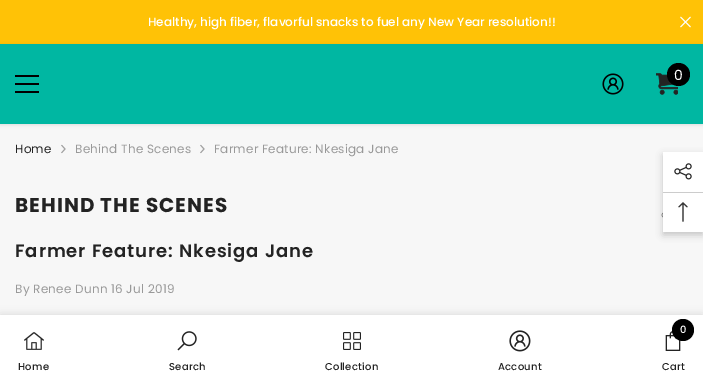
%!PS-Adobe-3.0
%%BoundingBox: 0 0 703 383
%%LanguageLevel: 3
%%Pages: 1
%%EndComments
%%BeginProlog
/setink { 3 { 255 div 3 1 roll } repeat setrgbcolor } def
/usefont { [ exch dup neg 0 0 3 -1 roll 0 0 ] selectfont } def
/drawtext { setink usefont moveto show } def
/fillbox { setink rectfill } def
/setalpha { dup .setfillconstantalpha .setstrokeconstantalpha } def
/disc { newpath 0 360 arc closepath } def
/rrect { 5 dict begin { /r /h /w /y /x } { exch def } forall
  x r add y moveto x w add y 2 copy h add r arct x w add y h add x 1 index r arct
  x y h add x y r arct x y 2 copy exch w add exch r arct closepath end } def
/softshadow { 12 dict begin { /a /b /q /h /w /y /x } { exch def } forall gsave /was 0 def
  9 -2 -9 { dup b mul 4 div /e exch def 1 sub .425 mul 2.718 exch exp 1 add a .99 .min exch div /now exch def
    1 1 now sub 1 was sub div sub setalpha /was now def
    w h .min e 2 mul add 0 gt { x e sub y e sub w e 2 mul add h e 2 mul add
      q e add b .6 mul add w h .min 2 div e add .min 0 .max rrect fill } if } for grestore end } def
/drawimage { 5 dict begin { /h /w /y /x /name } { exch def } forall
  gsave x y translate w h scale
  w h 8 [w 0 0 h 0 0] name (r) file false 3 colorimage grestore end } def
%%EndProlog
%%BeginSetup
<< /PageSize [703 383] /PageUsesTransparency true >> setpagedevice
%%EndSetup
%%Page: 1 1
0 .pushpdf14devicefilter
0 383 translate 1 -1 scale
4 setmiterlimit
0 0 703 383 247 247 247 fillbox
0 0 703 44 255 194 6 fillbox
(Healthy, high fiber, flavorful snacks to fuel any New Year resolution!!) 148 26 /Poppins-Medium 12 255 255 255 drawtext
(assets/img1.rgb) 680 16 11 12 drawimage
0 0 0 setink
0 45 703 80 0 1.5 0.1 softshadow
0 44 703 80 0 183 162 fillbox
15 83 24 2 0 0 0 fillbox
15 75 24 2 0 0 0 fillbox
15 91 24 2 0 0 0 fillbox
(assets/img2.rgb) 602 73 22 22 drawimage
(assets/img3.rgb) 656 73 22 22 drawimage
678.5 74.5 11.5 disc fill
/Poppins-Regular 14 usefont
255 255 255 setink
674 80 moveto 0.25 0 (0) ashow
/Poppins-Regular 12 usefont
35 35 35 setink
15 153 moveto 0.25 0 (Home) ashow
(assets/img4.rgb) 61 144 5 10 drawimage
153 153 153 setink
75 153 moveto 0.25 0 (Behind The Scenes) ashow
(assets/img4.rgb) 200 144 5 10 drawimage
214 153 moveto 0.25 0 (Farmer Feature: Nkesiga Jane) ashow
/Poppins-Bold 20 usefont
35 35 35 setink
15 212 moveto 1 0 (BEHIND THE SCENES) ashow
(assets/img5.rgb) 661 212 2 6 drawimage
/Poppins-SemiBold 18 usefont
15 257 moveto 0.9 0 (Farmer Feature: Nkesiga Jane) ashow
/Poppins-Regular 12 usefont
153 153 153 setink
15 293 moveto 0.25 0 (By Renee Dunn 16 Jul 2019) ashow
0 0 0 setink
0 315 703 68 0 4.5 0.12 softshadow
0 315 703 68 255 255 255 fillbox
(assets/img6.rgb) 24 332 20 18 drawimage
/Poppins-Medium 10 usefont
35 35 35 setink
18 370 moveto 0.25 0 (Home) ashow
(assets/img7.rgb) 177 331 20 20 drawimage
169 370 moveto 0.25 0 (Search) ashow
(assets/img8.rgb) 343 332 18 18 drawimage
325 370 moveto 0.25 0 (Collection) ashow
(assets/img9.rgb) 509 330 22 22 drawimage
498 370 moveto 0.25 0 (Account) ashow
(assets/img10.rgb) 665 331 16 20 drawimage
0 0 0 setink
683 330 11 disc fill
255 255 255 setink
680 333 moveto 0.25 0 (0) ashow
35 35 35 setink
662 370 moveto 0.25 0 (Cart) ashow
0 0 0 setink
663 155 40 80 0 3.5 0.2 softshadow
663 152 40 80 255 255 255 fillbox
(assets/img11.rgb) 674 163 18 17 drawimage
663 192 40 1 204 204 204 fillbox
(assets/img12.rgb) 678 202 10 20 drawimage
.poppdf14devicefilter showpage
%%EOF
